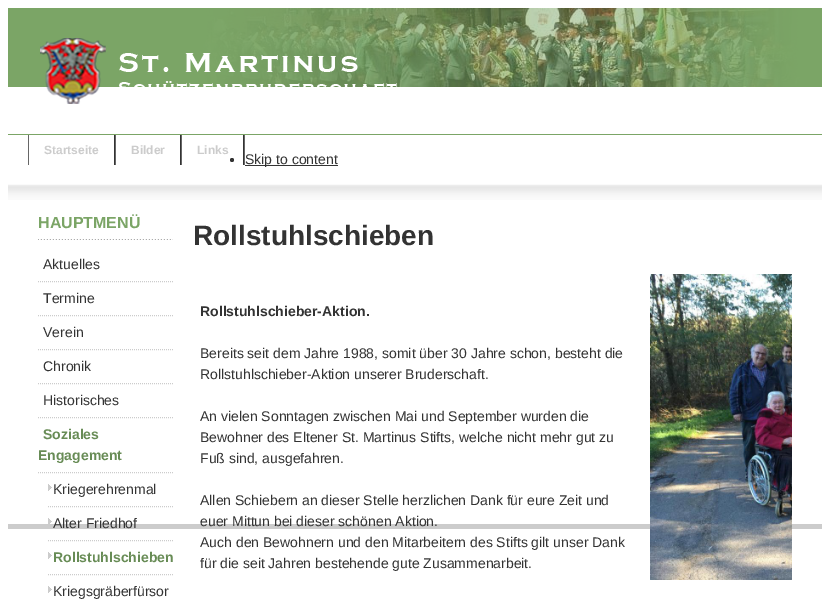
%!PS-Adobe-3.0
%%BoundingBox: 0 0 830 608
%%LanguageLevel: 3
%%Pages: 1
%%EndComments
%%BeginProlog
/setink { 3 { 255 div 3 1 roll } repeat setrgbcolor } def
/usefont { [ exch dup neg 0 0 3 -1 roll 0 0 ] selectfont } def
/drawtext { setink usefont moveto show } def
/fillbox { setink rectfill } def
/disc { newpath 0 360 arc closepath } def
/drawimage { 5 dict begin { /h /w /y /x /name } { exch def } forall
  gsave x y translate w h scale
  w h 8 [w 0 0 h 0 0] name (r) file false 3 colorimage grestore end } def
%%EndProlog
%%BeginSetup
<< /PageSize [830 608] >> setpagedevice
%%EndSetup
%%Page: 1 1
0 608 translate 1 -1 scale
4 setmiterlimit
0 0 830 608 255 255 255 fillbox
8 8 814 79 123 165 102 fillbox
(assets/img1.rgb) 206 8 592 79 drawimage
(assets/img2.rgb) 202 8 600 79 drawimage
(assets/img3.rgb) 40 38 357 66 drawimage
8 134 814 1 123 165 102 fillbox
244 135 1 30 102 102 102 fillbox
114 135 1 30 51 51 51 fillbox
28 135 1 30 102 102 102 fillbox
(Startseite) 44 154 /LiberationSans-Bold 12 204 204 204 drawtext
180 135 1 30 51 51 51 fillbox
115 135 1 30 102 102 102 fillbox
(Bilder) 131 154 /LiberationSans-Bold 12 204 204 204 drawtext
243 135 1 30 51 51 51 fillbox
181 135 1 30 102 102 102 fillbox
(Links) 197 154 /LiberationSans-Bold 12 204 204 204 drawtext
51 51 51 setink
232 160 2 disc fill
245 165 93 1 51 51 51 fillbox
(Skip to content) 245 164 /LiberationSans-Regular 14 51 51 51 drawtext
(assets/img4.rgb) 8 184 814 16 drawimage
8 524 814 5 204 204 204 fillbox
(assets/img5.rgb) 38 239 135 1 drawimage
(HAUPTMENÜ) 38 228 /LiberationSans-Bold 16 123 165 102 drawtext
204 204 204 setink
[1 1] 0 setdash
38 281.5 moveto 173 281.5 lineto stroke
(Aktuelles) 43 269 /LiberationSans-Regular 14 51 51 51 drawtext
204 204 204 setink
38 315.5 moveto 173 315.5 lineto stroke
(Termine) 43 303 /LiberationSans-Regular 14 51 51 51 drawtext
204 204 204 setink
38 349.5 moveto 173 349.5 lineto stroke
(Verein) 43 337 /LiberationSans-Regular 14 51 51 51 drawtext
204 204 204 setink
38 383.5 moveto 173 383.5 lineto stroke
(Chronik) 43 371 /LiberationSans-Regular 14 51 51 51 drawtext
204 204 204 setink
38 417.5 moveto 173 417.5 lineto stroke
(Historisches) 43 405 /LiberationSans-Regular 14 51 51 51 drawtext
204 204 204 setink
38 472.5 moveto 173 472.5 lineto stroke
(Soziales) 43 439 /LiberationSans-Bold 14 104 140 86 drawtext
(Engagement) 38 460 /LiberationSans-Bold 14 104 140 86 drawtext
(assets/img6.rgb) 48 484 4 7 drawimage
204 204 204 setink
48 506.5 moveto 173 506.5 lineto stroke
(Kriegerehrenmal) 53 494 /LiberationSans-Regular 14 51 51 51 drawtext
(assets/img7.rgb) 48 518 4 6 drawimage
204 204 204 setink
48 540.5 moveto 173 540.5 lineto stroke
(Alter Friedhof) 53 528 /LiberationSans-Regular 14 51 51 51 drawtext
(assets/img6.rgb) 48 552 4 7 drawimage
204 204 204 setink
48 574.5 moveto 173 574.5 lineto stroke
(Rollstuhlschieben) 53 562 /LiberationSans-Bold 14 104 140 86 drawtext
(assets/img6.rgb) 48 586 4 7 drawimage
(Kriegsgräberfürsor) 53 596 /LiberationSans-Regular 14 51 51 51 drawtext
(Rollstuhlschieben) 193 245 /LiberationSans-Bold 28 51 51 51 drawtext
(Rollstuhlschieber-Aktion.) 200 316 /LiberationSans-Bold 14 51 51 51 drawtext
(Bereits seit dem Jahre 1988, somit über 30 Jahre schon, besteht die) 200 358 /LiberationSans-Regular 14 51 51 51 drawtext
(Rollstuhlschieber-Aktion unserer Bruderschaft.) 200 379 /LiberationSans-Regular 14 51 51 51 drawtext
(An vielen Sonntagen zwischen Mai und September wurden die) 200 421 /LiberationSans-Regular 14 51 51 51 drawtext
(Bewohner des Eltener St. Martinus Stifts, welche nicht mehr gut zu) 200 442 /LiberationSans-Regular 14 51 51 51 drawtext
(Fuß sind, ausgefahren.) 200 463 /LiberationSans-Regular 14 51 51 51 drawtext
(Allen Schiebern an dieser Stelle herzlichen Dank für eure Zeit und) 200 505 /LiberationSans-Regular 14 51 51 51 drawtext
(euer Mittun bei dieser schönen Aktion.) 200 526 /LiberationSans-Regular 14 51 51 51 drawtext
(Auch den Bewohnern und den Mitarbeitern des Stifts gilt unser Dank) 200 547 /LiberationSans-Regular 14 51 51 51 drawtext
(für die seit Jahren bestehende gute Zusammenarbeit.) 200 568 /LiberationSans-Regular 14 51 51 51 drawtext
(assets/img8.rgb) 650 274 142 306 drawimage
showpage
%%EOF
